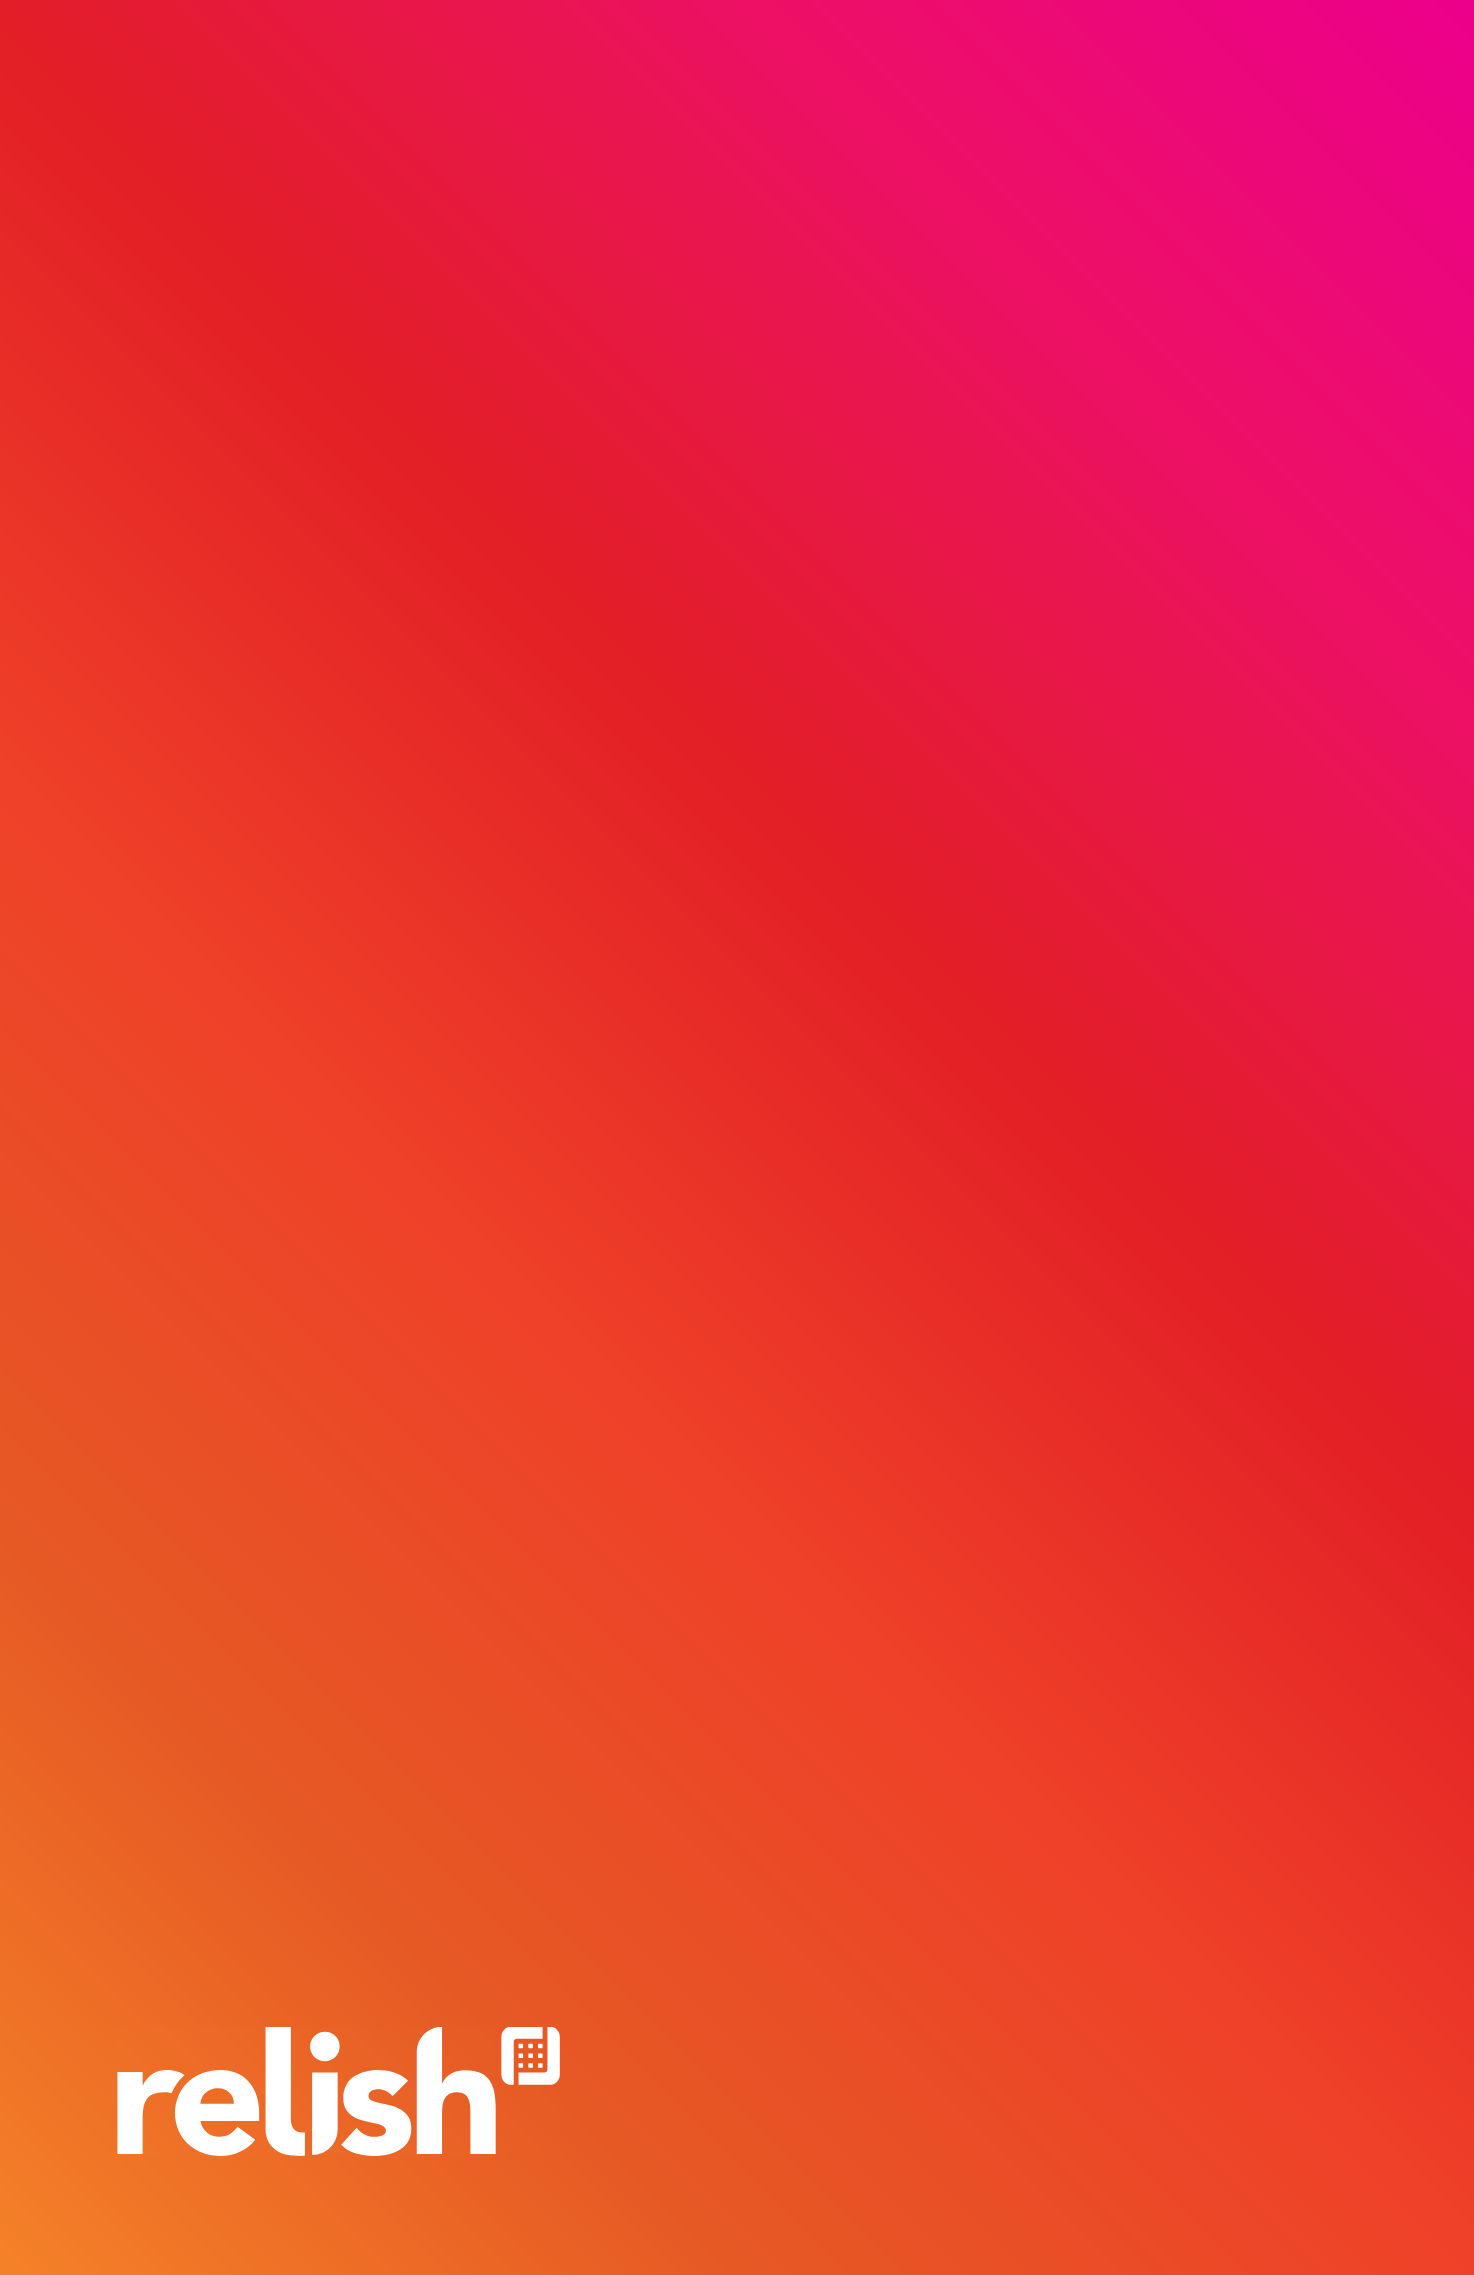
%!PS-Adobe-3.0
%%BoundingBox: 0 0 1474 2275
%%LanguageLevel: 3
%%Pages: 1
%%EndComments
%%BeginProlog
/setink { 3 { 255 div 3 1 roll } repeat setrgbcolor } def
/fillbox { setink rectfill } def
/drawimage { 5 dict begin { /h /w /y /x /name } { exch def } forall
  gsave x y translate w h scale
  w h 8 [w 0 0 h 0 0] name (r) file false 3 colorimage grestore end } def
%%EndProlog
%%BeginSetup
<< /PageSize [1474 2275] >> setpagedevice
%%EndSetup
%%Page: 1 1
0 2275 translate 1 -1 scale
4 setmiterlimit
0 0 1474 2275 255 255 255 fillbox
gsave 0 0 moveto 1474 0 lineto 1474 2275 lineto 0 2275 lineto closepath clip newpath
<< /ShadingType 2 /ColorSpace /DeviceRGB /Coords [-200 2075 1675 200] /Extend [true true] /Function << /FunctionType 3 /Domain [0 1] /Functions [<< /FunctionType 2 /Domain [0 1] /C0 [0.961 0.51 0.161] /C1 [0.902 0.349 0.145] /N 1 >> << /FunctionType 2 /Domain [0 1] /C0 [0.902 0.349 0.145] /C1 [0.937 0.255 0.161] /N 1 >> << /FunctionType 2 /Domain [0 1] /C0 [0.937 0.255 0.161] /C1 [0.89 0.122 0.149] /N 1 >> << /FunctionType 2 /Domain [0 1] /C0 [0.89 0.122 0.149] /C1 [0.929 0.067 0.392] /N 1 >> << /FunctionType 2 /Domain [0 1] /C0 [0.929 0.067 0.392] /C1 [0.925 0 0.549] /N 1 >>] /Bounds [0.2 0.4 0.6 0.8] /Encode [0 1 0 1 0 1 0 1 0 1] >> >> shfill grestore
(assets/img1.rgb) 117 2027 443 129 drawimage
showpage
%%EOF
